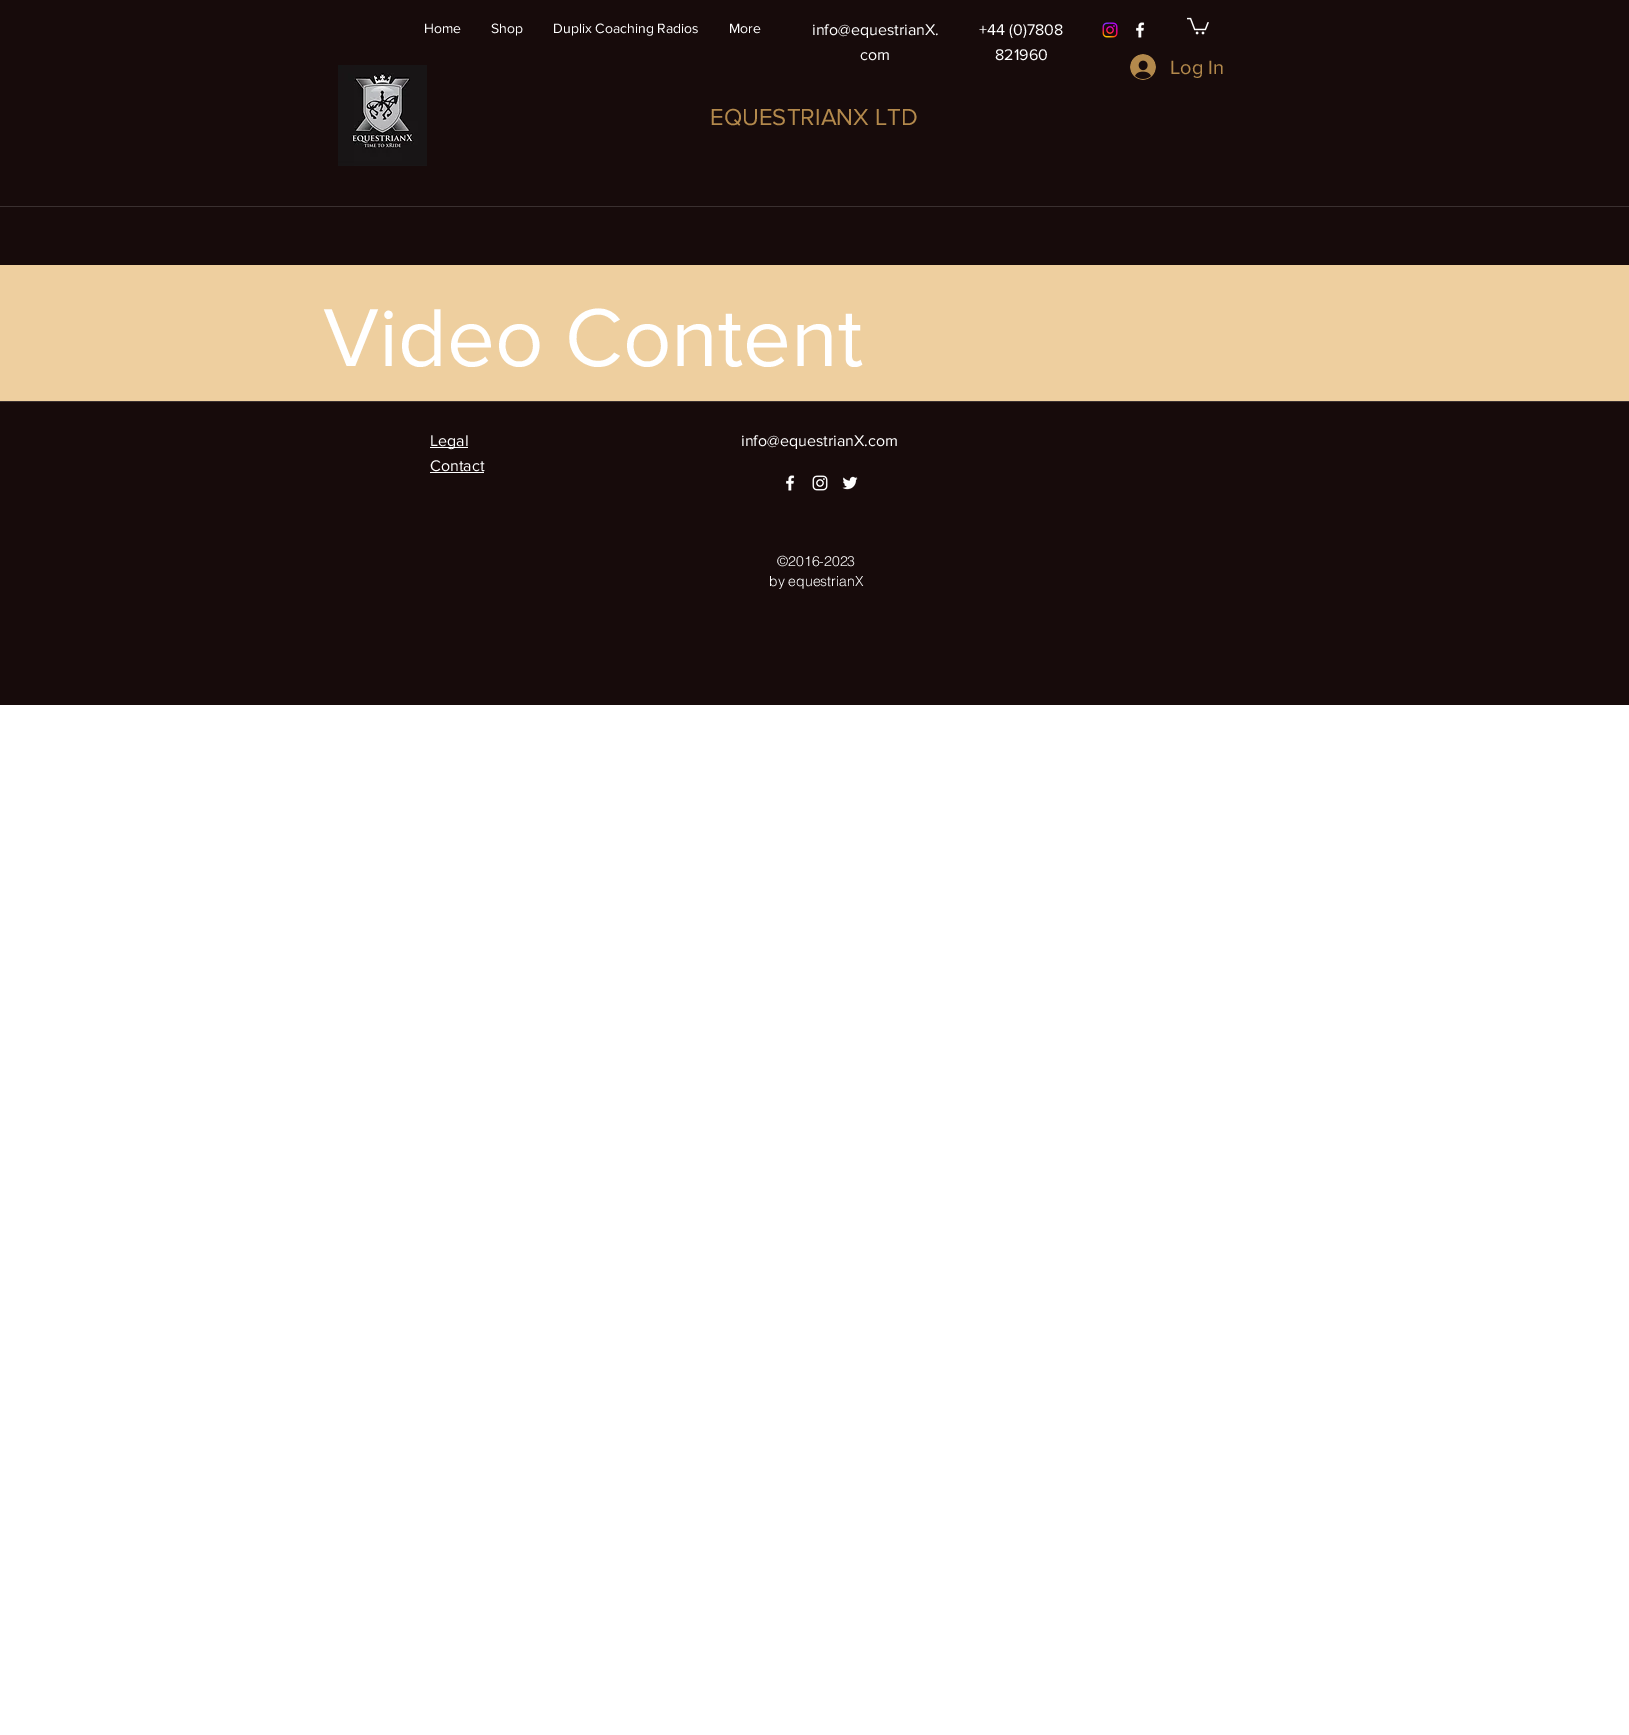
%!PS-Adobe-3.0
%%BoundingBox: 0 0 1629 1735
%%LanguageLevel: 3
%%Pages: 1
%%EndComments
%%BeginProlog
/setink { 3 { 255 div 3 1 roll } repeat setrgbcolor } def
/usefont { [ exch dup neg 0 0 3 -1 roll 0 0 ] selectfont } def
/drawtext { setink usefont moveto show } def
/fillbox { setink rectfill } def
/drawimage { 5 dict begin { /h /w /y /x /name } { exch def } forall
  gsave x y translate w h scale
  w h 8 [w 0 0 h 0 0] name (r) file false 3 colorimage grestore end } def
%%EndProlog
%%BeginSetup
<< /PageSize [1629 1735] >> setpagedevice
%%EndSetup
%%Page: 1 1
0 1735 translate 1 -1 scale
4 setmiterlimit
0 0 1629 1735 255 255 255 fillbox
0 0 1629 265 23 11 11 fillbox
(assets/img1.rgb) 338 65 89 101 drawimage
(Home) 424 33 /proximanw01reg-Regular 14 255 255 255 drawtext
(Shop) 491 33 /proximanw01reg-Regular 14 255 255 255 drawtext
(Duplix Coaching Radios) 553 33 /proximanw01reg-Regular 14 255 255 255 drawtext
(More) 729 33 /proximanw01reg-Regular 14 255 255 255 drawtext
(info@equestrianX.) 812 35 /proximanw01reg-Regular 16 255 255 255 drawtext
(com) 860 60 /proximanw01reg-Regular 16 255 255 255 drawtext
(+44 \(0\)7808) 979 35 /proximanw01reg-Regular 16 255 255 255 drawtext
(821960) 995 60 /proximanw01reg-Regular 16 255 255 255 drawtext
(assets/img2.rgb) 1102 22 16 16 drawimage
(assets/img3.rgb) 1136 22 9 16 drawimage
(assets/img4.rgb) 1187 17 22 18 drawimage
(EQUESTRIANX LTD) 710 125 /proximanw01reg-Regular 24 179 137 76 drawtext
(assets/img5.rgb) 1130 54 26 26 drawimage
(Log In) 1170 74 /proximanw01reg-Regular 20 179 137 76 drawtext
0 206 1629 1 58 48 48 fillbox
0 265 1629 136 238 207 159 fillbox
(Video Content) 323 366 /proximanw01reg-Regular 85 255 255 255 drawtext
0 402 1629 303 23 11 11 fillbox
0 401 1629 1 58 48 48 fillbox
430 447 38 1 255 255 255 fillbox
(Legal) 430 446 /proximanw01reg-Regular 16 255 255 255 drawtext
(Contact) 430 471 /proximanw01reg-Regular 16 255 255 255 drawtext
430 472 54 1 255 255 255 fillbox
(info@equestrianX.com) 741 446 /proximanw01reg-Regular 16 255 255 255 drawtext
(assets/img3.rgb) 786 475 9 16 drawimage
(assets/img6.rgb) 812 475 16 16 drawimage
(assets/img7.rgb) 842 476 16 14 drawimage
(©2016-2023) 777 566 /helvetica-Light 14 255 255 255 drawtext
(by equestrianX) 769 586 /helvetica-Light 14 255 255 255 drawtext
showpage
%%EOF
